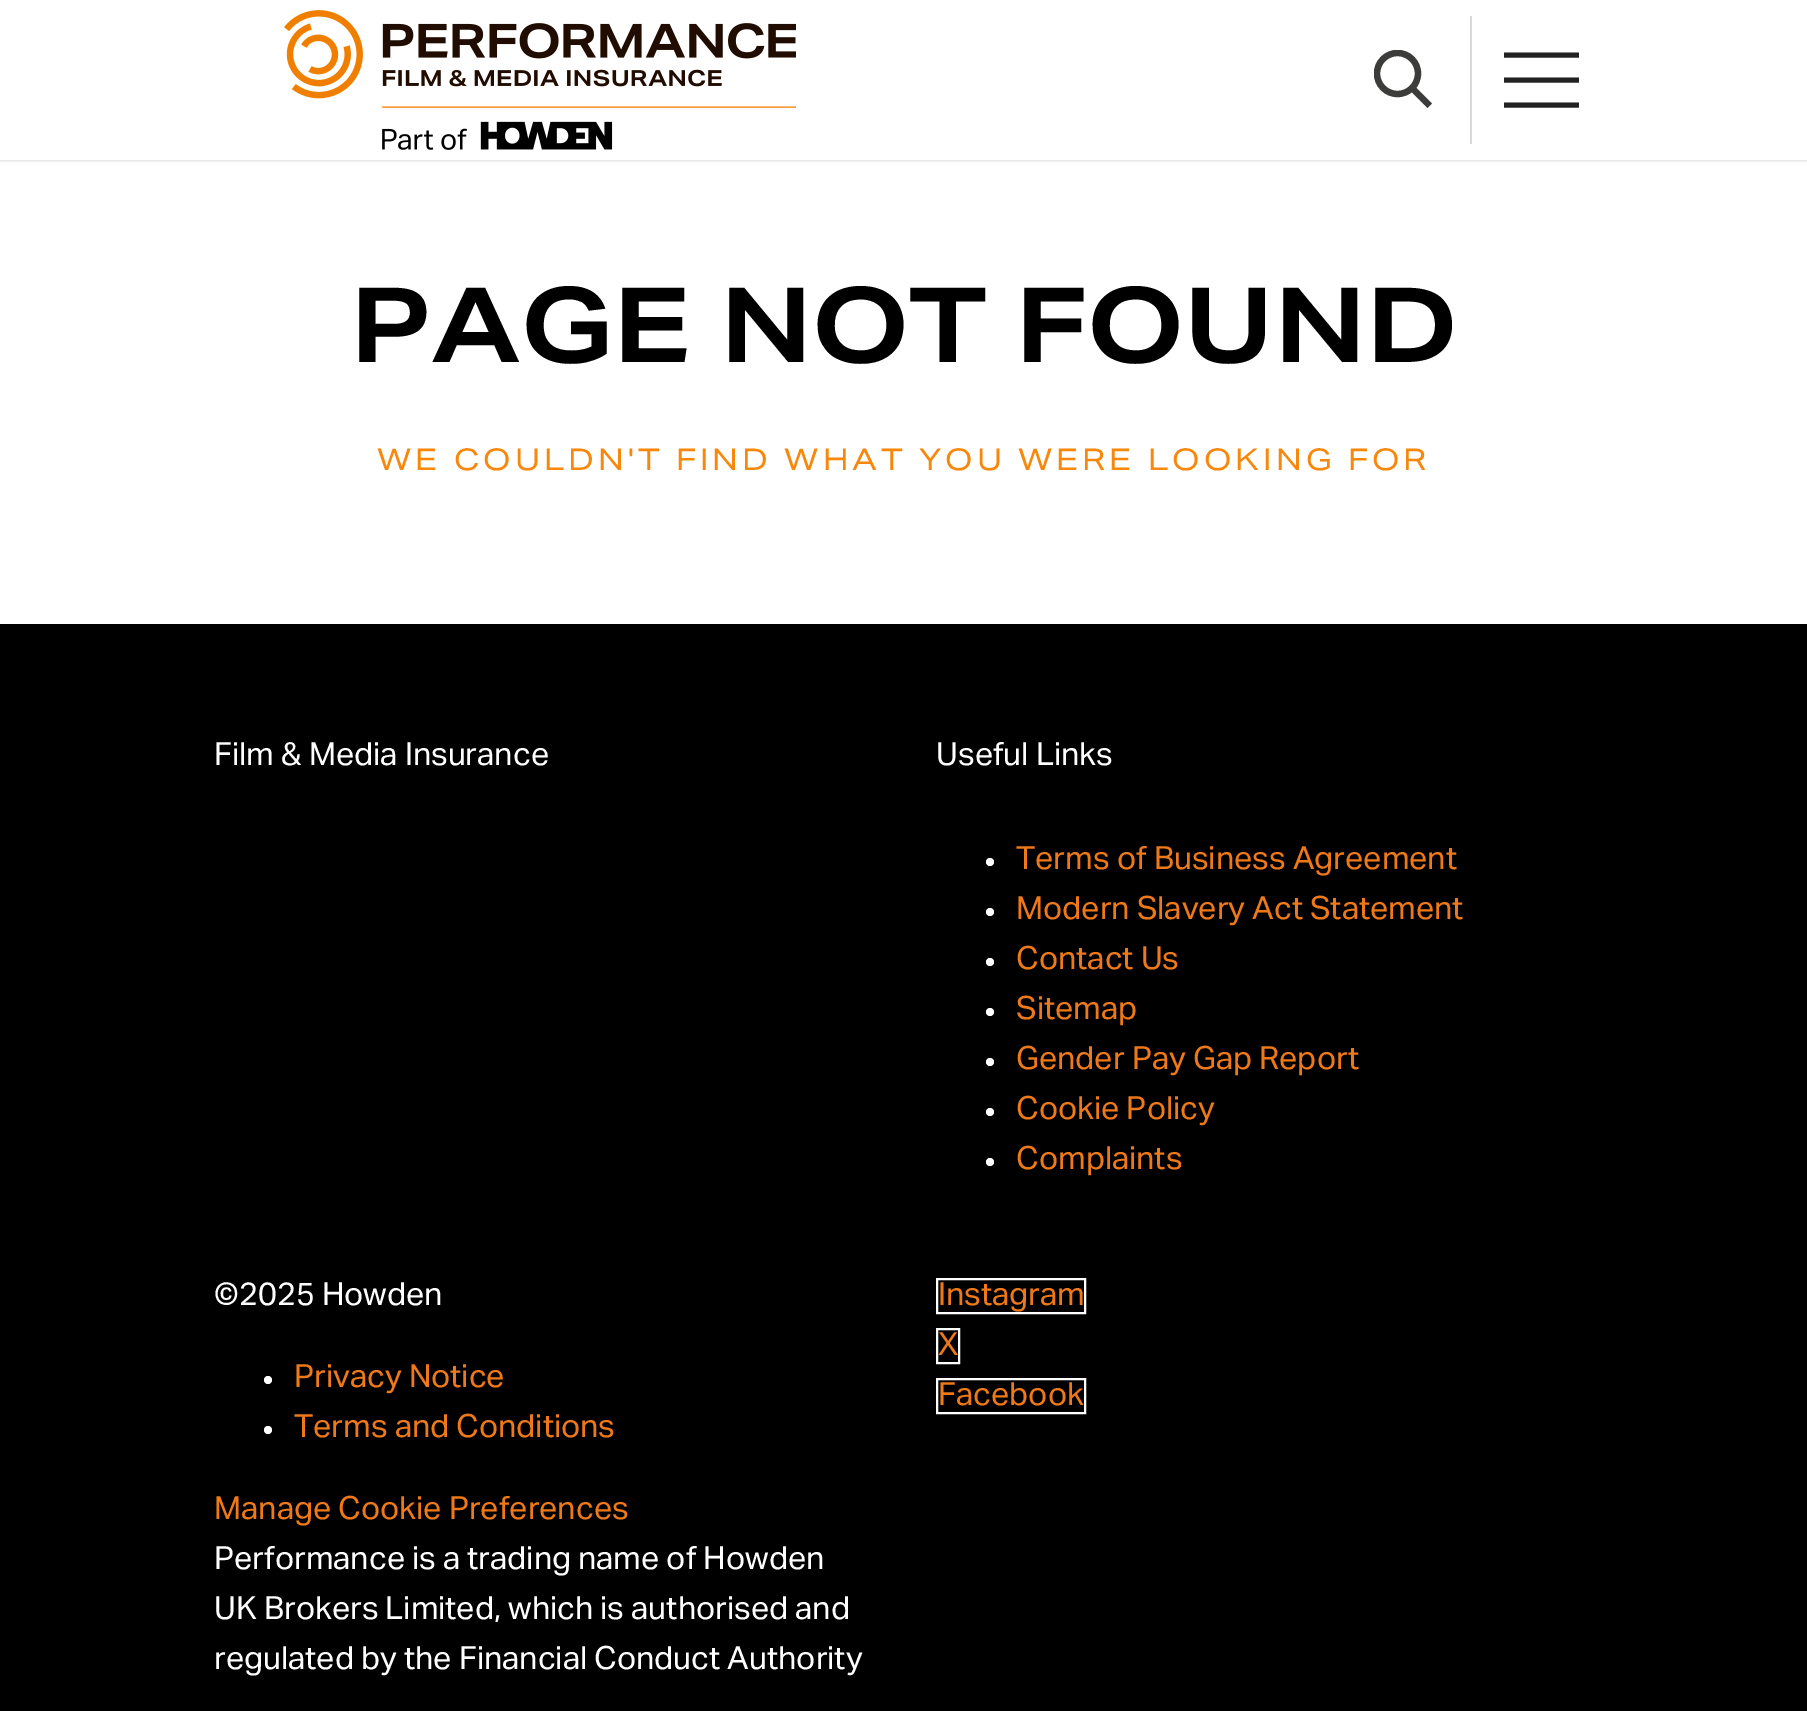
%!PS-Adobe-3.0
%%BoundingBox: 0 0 1807 1711
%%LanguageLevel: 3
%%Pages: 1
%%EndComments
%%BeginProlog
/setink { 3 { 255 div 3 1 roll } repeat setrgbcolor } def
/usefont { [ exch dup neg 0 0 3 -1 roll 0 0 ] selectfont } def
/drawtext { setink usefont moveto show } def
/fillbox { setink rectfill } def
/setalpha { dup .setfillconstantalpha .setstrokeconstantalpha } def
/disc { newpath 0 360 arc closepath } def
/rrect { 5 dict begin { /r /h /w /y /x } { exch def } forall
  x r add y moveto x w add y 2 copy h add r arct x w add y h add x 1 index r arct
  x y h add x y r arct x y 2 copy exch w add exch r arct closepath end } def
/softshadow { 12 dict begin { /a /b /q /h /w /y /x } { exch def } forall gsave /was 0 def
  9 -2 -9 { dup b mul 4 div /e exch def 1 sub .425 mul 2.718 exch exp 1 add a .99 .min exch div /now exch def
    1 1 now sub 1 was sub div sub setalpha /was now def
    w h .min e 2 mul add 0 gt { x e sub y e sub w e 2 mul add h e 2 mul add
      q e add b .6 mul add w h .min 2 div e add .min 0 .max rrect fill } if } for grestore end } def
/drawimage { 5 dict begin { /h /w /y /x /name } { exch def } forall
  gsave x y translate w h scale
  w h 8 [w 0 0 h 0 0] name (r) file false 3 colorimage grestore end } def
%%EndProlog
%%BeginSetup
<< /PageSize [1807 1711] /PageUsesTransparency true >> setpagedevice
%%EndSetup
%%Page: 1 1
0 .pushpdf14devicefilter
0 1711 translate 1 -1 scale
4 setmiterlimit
0 0 1807 1711 255 255 255 fillbox
gsave
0 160 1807 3 rectclip
0 0 0 setink
0 0 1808 160 0 2 0.2 softshadow
grestore
(assets/img1.rgb) 284 10 512 140 drawimage
gsave
1374 50 60 60 rectclip
60 60 59 setink
6.3 setlinewidth
1397.5 73.5 20.5 disc stroke
grestore
60 60 59 setink
6.3 setlinewidth
2 setlinecap
1415 91 moveto 1427.5 103.5 lineto stroke
1470 16 2 128 218 218 218 fillbox
34 34 34 setink
5 setlinewidth
0 setlinecap
2 setlinejoin
1504 55 moveto 1579 55 lineto stroke
1504 80 moveto 1579 80 lineto stroke
1504 105 moveto 1579 105 lineto stroke
(PAGE NOT FOUND) 350 362 /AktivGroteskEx-Bold 104 0 0 0 drawtext
/AktivGroteskEx-Regular 30 usefont
247 136 12 setink
377 470 moveto 4 0 (WE COULDN'T FIND WHAT YOU WERE LOOKING FOR) ashow
0 624 1807 1087 0 0 0 fillbox
(Film & Media Insurance) 214 765 /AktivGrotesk-Regular 32 255 255 255 drawtext
(Useful Links) 936 765 /AktivGrotesk-Regular 32 255 255 255 drawtext
990 862 4 disc fill
(Terms of Business Agreement) 1016 869 /AktivGrotesk-Regular 32 239 121 24 drawtext
255 255 255 setink
990 912 4 disc fill
(Modern Slavery Act Statement) 1016 919 /AktivGrotesk-Regular 32 239 121 24 drawtext
255 255 255 setink
990 962 4 disc fill
(Contact Us) 1016 969 /AktivGrotesk-Regular 32 239 121 24 drawtext
255 255 255 setink
990 1012 4 disc fill
(Sitemap) 1016 1019 /AktivGrotesk-Regular 32 239 121 24 drawtext
255 255 255 setink
990 1062 4 disc fill
(Gender Pay Gap Report) 1016 1069 /AktivGrotesk-Regular 32 239 121 24 drawtext
255 255 255 setink
990 1112 4 disc fill
(Cookie Policy) 1016 1119 /AktivGrotesk-Regular 32 239 121 24 drawtext
255 255 255 setink
990 1162 4 disc fill
(Complaints) 1016 1169 /AktivGrotesk-Regular 32 239 121 24 drawtext
(©2025 Howden) 214 1305 /AktivGrotesk-Regular 32 255 255 255 drawtext
268 1380 4 disc fill
(Privacy Notice) 294 1387 /AktivGrotesk-Regular 32 239 121 24 drawtext
255 255 255 setink
268 1430 4 disc fill
(Terms and Conditions) 294 1437 /AktivGrotesk-Regular 32 239 121 24 drawtext
(Manage Cookie Preferences) 214 1519 /AktivGrotesk-Regular 32 239 121 24 drawtext
(Performance is a trading name of Howden) 214 1569 /AktivGrotesk-Regular 32 255 255 255 drawtext
(UK Brokers Limited, which is authorised and) 214 1619 /AktivGrotesk-Regular 32 255 255 255 drawtext
(regulated by the Financial Conduct Authority) 214 1669 /AktivGrotesk-Regular 32 255 255 255 drawtext
2 setlinewidth
0 setlinejoin
937 1279 148 34 rectstroke
(Instagram) 938 1305 /AktivGrotesk-Regular 32 239 121 24 drawtext
255 255 255 setink
937 1329 22 34 rectstroke
(X) 938 1355 /AktivGrotesk-Regular 32 239 121 24 drawtext
255 255 255 setink
937 1379 148 34 rectstroke
(Facebook) 938 1405 /AktivGrotesk-Regular 32 239 121 24 drawtext
.poppdf14devicefilter showpage
%%EOF
